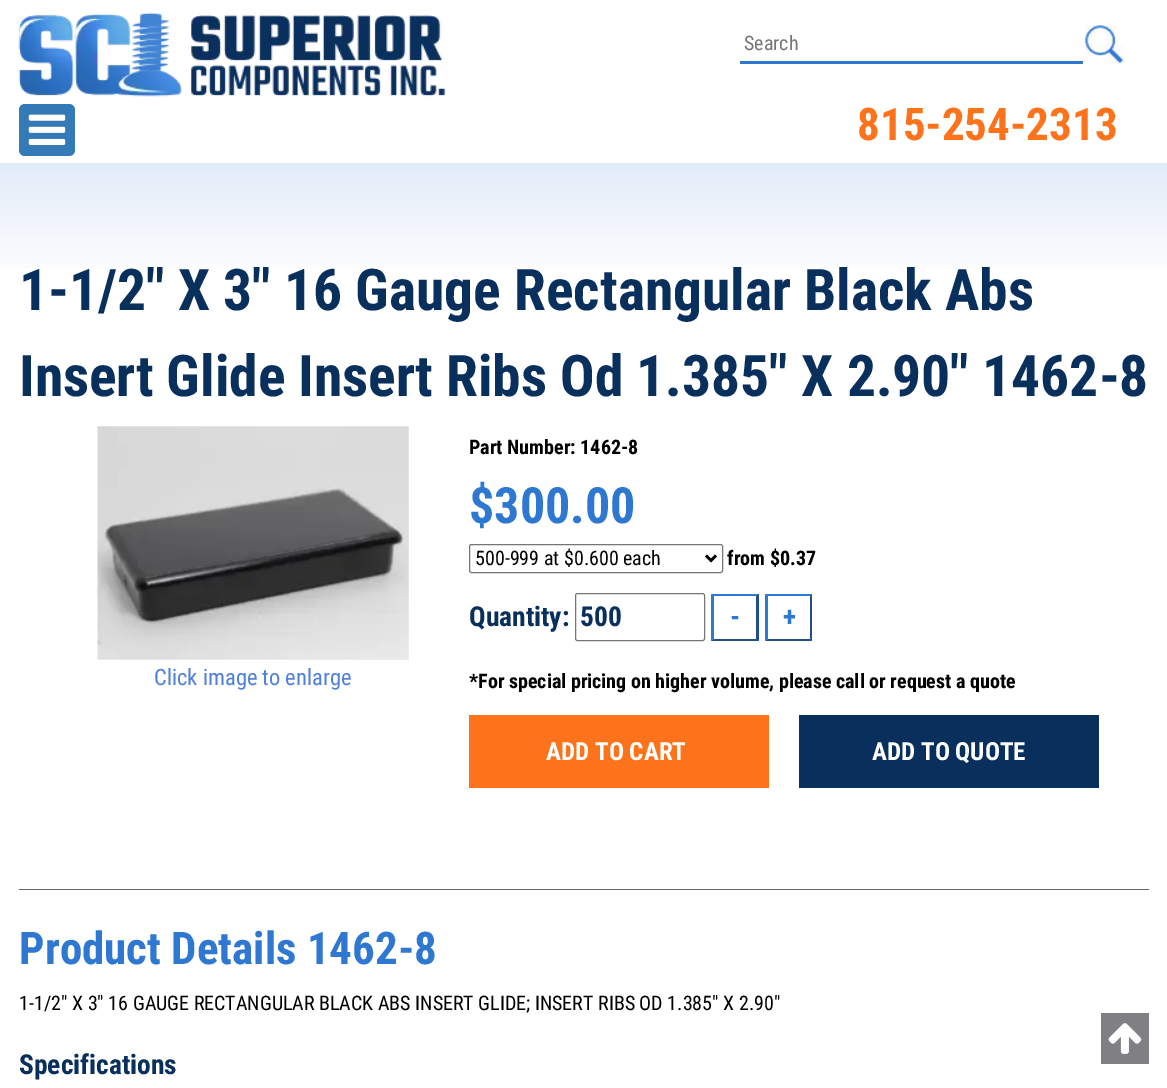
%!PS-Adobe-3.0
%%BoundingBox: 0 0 1167 1088
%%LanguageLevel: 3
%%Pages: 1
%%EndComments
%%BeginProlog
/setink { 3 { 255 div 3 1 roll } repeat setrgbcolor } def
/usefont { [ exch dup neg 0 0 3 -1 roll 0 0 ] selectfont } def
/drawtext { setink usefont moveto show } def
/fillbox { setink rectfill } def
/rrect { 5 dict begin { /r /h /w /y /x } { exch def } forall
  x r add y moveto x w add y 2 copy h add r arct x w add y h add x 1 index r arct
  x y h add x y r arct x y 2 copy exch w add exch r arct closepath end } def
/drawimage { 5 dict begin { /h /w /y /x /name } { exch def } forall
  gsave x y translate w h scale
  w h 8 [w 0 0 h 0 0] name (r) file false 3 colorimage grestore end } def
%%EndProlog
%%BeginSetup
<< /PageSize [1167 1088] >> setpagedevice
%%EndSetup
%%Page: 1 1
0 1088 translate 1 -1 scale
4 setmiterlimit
0 0 1167 1088 255 255 255 fillbox
51 122 183 setink
19 104 56 52 6 rrect fill
(assets/img1.rgb) 28 114 38 31 drawimage
(assets/img2.rgb) 18 12 428 85 drawimage
740 61 343 3 47 120 209 fillbox
(Search) 744 50 /RobotoCondensed-Regular 20 117 117 117 drawtext
(assets/img3.rgb) 1085 25 39 39 drawimage
(815-254-2313) 857 140 /RobotoCondensed-Bold 45 252 115 27 drawtext
gsave 0 163 moveto 1167 163 lineto 1167 269 lineto 0 269 lineto closepath clip newpath
<< /ShadingType 2 /ColorSpace /DeviceRGB /Coords [584 162 584 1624] /Extend [true true] /Function << /FunctionType 3 /Domain [0 1] /Functions [<< /FunctionType 2 /Domain [0 1] /C0 [0.886 0.925 0.976] /C1 [1 1 1] /N 1 >> << /FunctionType 2 /Domain [0 1] /C0 [1 1 1] /C1 [1 1 1] /N 1 >>] /Bounds [0.08] /Encode [0 1 0 1] >> >> shfill grestore
(1-1/2" X 3" 16 Gauge Rectangular Black Abs) 19 310 /RobotoCondensed-Bold 57.5 9 48 93 drawtext
(Insert Glide Insert Ribs Od 1.385" X 2.90" 1462-8) 19 396 /RobotoCondensed-Bold 57.5 9 48 93 drawtext
(assets/img4.rgb) 97 426 312 234 drawimage
(Click image to enlarge) 154 685 /RobotoCondensed-Regular 22.5 82 128 221 drawtext
(Part Number: 1462-8) 469 454 /RobotoCondensed-Bold 20 0 0 0 drawtext
($300.00) 469 523 /RobotoCondensed-Bold 50 47 120 209 drawtext
118 118 118 setink
469.5 544.5 253 28 2 rrect stroke
0 0 0 setink
2.5 setlinewidth
706 555.5 moveto 711 560.5 lineto 716 555.5 lineto stroke
(500-999 at $0.600 each) 475 565 /RobotoCondensed-Regular 20 0 0 0 drawtext
(from $0.37) 727 565 /RobotoCondensed-Bold 20 0 0 0 drawtext
(Quantity:) 469 626 /RobotoCondensed-Bold 27.5 9 48 93 drawtext
118 118 118 setink
1 setlinewidth
575.5 593.5 129 47 2 rrect stroke
(500) 580 626 /RobotoCondensed-Bold 27.5 9 48 93 drawtext
47 120 209 setink
711 594 moveto 759 594 lineto 756 596 lineto 714 596 lineto closepath fill
31 80 139 setink
759 594 moveto 759 641 lineto 756 639 lineto 756 596 lineto closepath fill
759 641 moveto 711 641 lineto 714 639 lineto 756 639 lineto closepath fill
47 120 209 setink
711 641 moveto 711 594 lineto 714 596 lineto 714 639 lineto closepath fill
(-) 730 626 /RobotoCondensed-Bold 27.5 47 120 209 drawtext
765 594 moveto 812 594 lineto 810 596 lineto 768 596 lineto closepath fill
31 80 139 setink
812 594 moveto 812 641 lineto 810 639 lineto 810 596 lineto closepath fill
812 641 moveto 765 641 lineto 768 639 lineto 810 639 lineto closepath fill
47 120 209 setink
765 641 moveto 765 594 lineto 768 596 lineto 768 639 lineto closepath fill
(+) 783 626 /RobotoCondensed-Bold 27.5 47 120 209 drawtext
(*For special pricing on higher volume, please call or request a quote) 469 688 /RobotoCondensed-Bold 20 0 0 0 drawtext
469 715 300 73 252 115 27 fillbox
(ADD TO CART) 546 760 /RobotoCondensed-Bold 25 255 255 255 drawtext
799 715 300 73 9 48 93 fillbox
(ADD TO QUOTE) 872 760 /RobotoCondensed-Bold 25 255 255 255 drawtext
19 889 1130 1 102 102 102 fillbox
(Product Details 1462-8) 19 964 /RobotoCondensed-Bold 45 47 120 209 drawtext
(1-1/2" X 3" 16 GAUGE RECTANGULAR BLACK ABS INSERT GLIDE; INSERT RIBS OD 1.385" X 2.90") 19 1010 /RobotoCondensed-Regular 20 0 0 0 drawtext
(Specifications) 19 1074 /RobotoCondensed-Bold 27.5 9 48 93 drawtext
1101 1013 48 51 128 127 131 fillbox
(assets/img5.rgb) 1108 1023 34 31 drawimage
showpage
%%EOF
